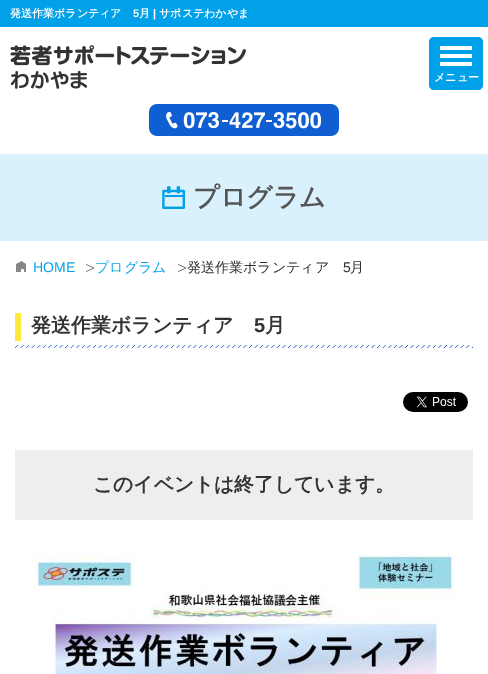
%!PS-Adobe-3.0
%%BoundingBox: 0 0 488 674
%%LanguageLevel: 3
%%Pages: 1
%%EndComments
%%BeginProlog
/setink { 3 { 255 div 3 1 roll } repeat setrgbcolor } def
/usefont { [ exch dup neg 0 0 3 -1 roll 0 0 ] selectfont } def
/drawtext { setink usefont moveto show } def
/fillbox { setink rectfill } def
/rrect { 5 dict begin { /r /h /w /y /x } { exch def } forall
  x r add y moveto x w add y 2 copy h add r arct x w add y h add x 1 index r arct
  x y h add x y r arct x y 2 copy exch w add exch r arct closepath end } def
/drawimage { 5 dict begin { /h /w /y /x /name } { exch def } forall
  gsave x y translate w h scale
  w h 8 [w 0 0 h 0 0] name (r) file false 3 colorimage grestore end } def
%%EndProlog
%%BeginSetup
<< /PageSize [488 674] >> setpagedevice
%%EndSetup
%%Page: 1 1
0 674 translate 1 -1 scale
4 setmiterlimit
0 0 488 674 255 255 255 fillbox
0 0 488 27 0 161 233 fillbox
(発送作業ボランティア) 10 17 /WenQuanYiZenHei-Bold 11 255 255 255 drawtext
(5) 133 17 /LiberationSans-Bold 11 255 255 255 drawtext
(月) 139 17 /WenQuanYiZenHei-Bold 11 255 255 255 drawtext
(|) 153 17 /LiberationSans-Bold 11 255 255 255 drawtext
(サポステわかやま) 159 17 /WenQuanYiZenHei-Bold 11 255 255 255 drawtext
(assets/img1.rgb) 10 45 236 44 drawimage
0 161 233 setink
429 37 54 53 5 rrect fill
440 46 32 4 255 255 255 fillbox
440 54 32 4 255 255 255 fillbox
440 62 32 4 255 255 255 fillbox
(メニュー) 434 81 /WenQuanYiZenHei-Bold 11 255 255 255 drawtext
(assets/img2.rgb) 149 104 190 32 drawimage
0 154 488 87 217 241 252 fillbox
(assets/img3.rgb) 162 186 23 23 drawimage
(プログラム) 193 206 /WenQuanYiZenHei-Bold 26 85 85 85 drawtext
(assets/img4.rgb) 16 261 10 11 drawimage
(HOME) 33 272 /LiberationSans-Regular 14 0 161 233 drawtext
(assets/img5.rgb) 86 264 8 8 drawimage
(プログラム) 95 272 /WenQuanYiZenHei-Medium 14 0 161 233 drawtext
(assets/img5.rgb) 178 264 8 8 drawimage
(発送作業ボランティア) 187 272 /WenQuanYiZenHei-Medium 14 51 51 51 drawtext
(5) 343 272 /LiberationSans-Regular 14 51 51 51 drawtext
(月) 350 272 /WenQuanYiZenHei-Medium 14 51 51 51 drawtext
(assets/img6.rgb) 15 345 458 3 drawimage
15 313 6 28 255 234 59 fillbox
(発送作業ボランティア) 31 332 /WenQuanYiZenHei-Bold 20 51 51 51 drawtext
(5) 254 332 /LiberationSans-Bold 20 51 51 51 drawtext
(月) 265 332 /WenQuanYiZenHei-Bold 20 51 51 51 drawtext
(assets/img7.rgb) 403 392 65 20 drawimage
15 450 458 70 238 238 238 fillbox
(このイベントは終了しています。) 93 491 /WenQuanYiZenHei-Bold 19.75 51 51 51 drawtext
(assets/img8.rgb) 31 554 424 120 drawimage
showpage
%%EOF
